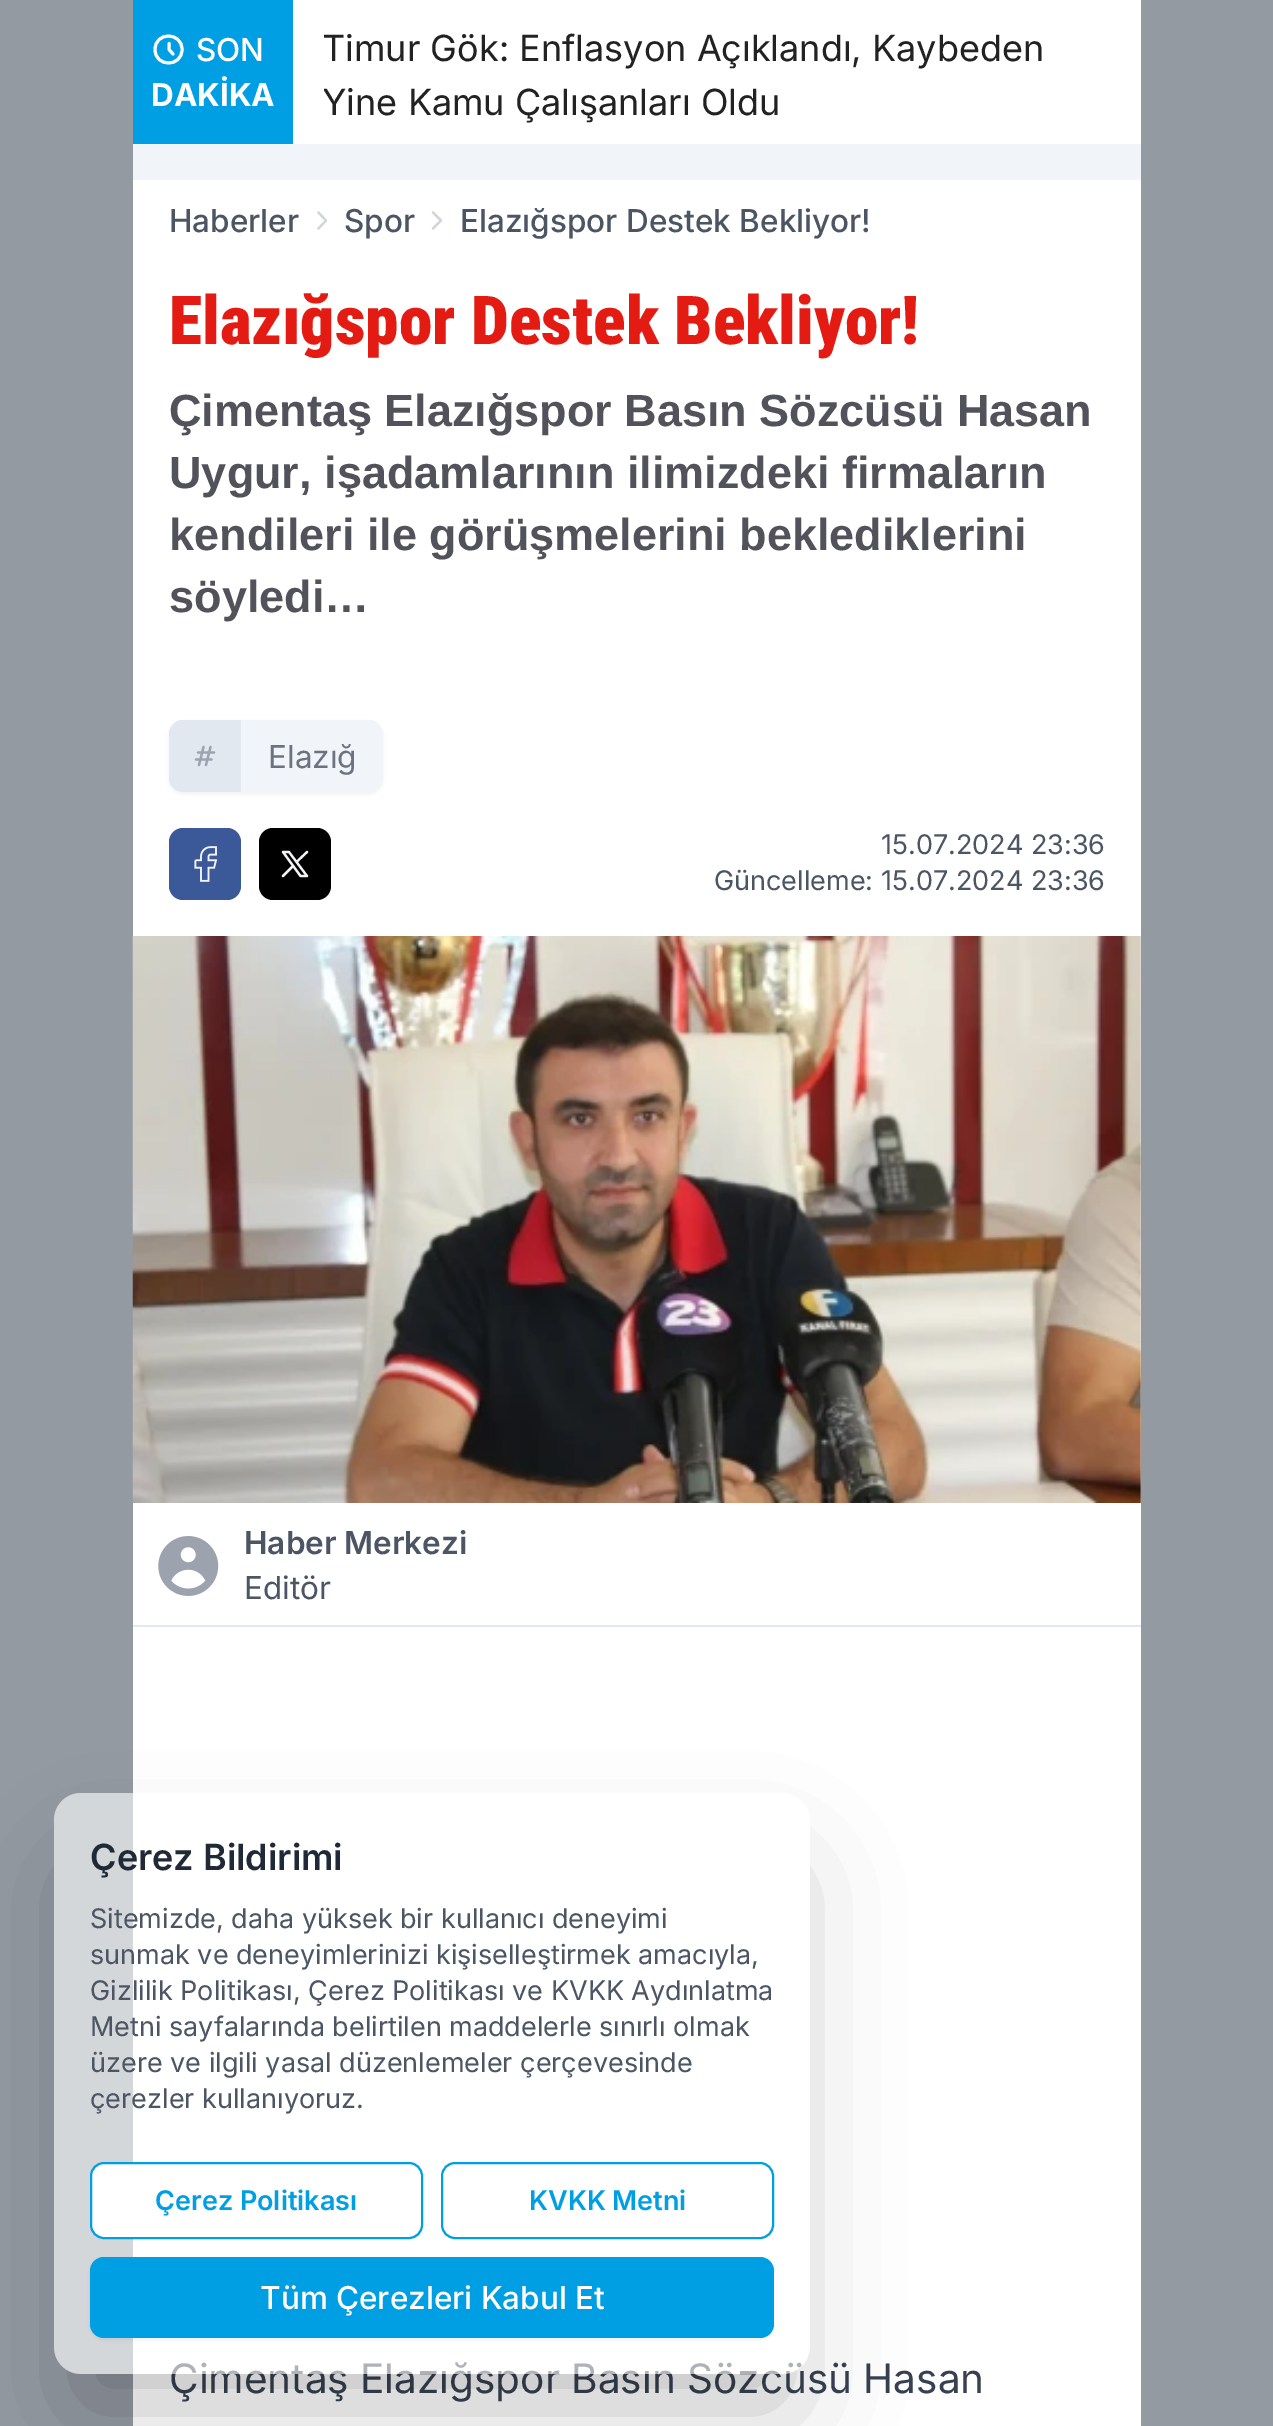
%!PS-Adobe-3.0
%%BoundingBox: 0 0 1273 2426
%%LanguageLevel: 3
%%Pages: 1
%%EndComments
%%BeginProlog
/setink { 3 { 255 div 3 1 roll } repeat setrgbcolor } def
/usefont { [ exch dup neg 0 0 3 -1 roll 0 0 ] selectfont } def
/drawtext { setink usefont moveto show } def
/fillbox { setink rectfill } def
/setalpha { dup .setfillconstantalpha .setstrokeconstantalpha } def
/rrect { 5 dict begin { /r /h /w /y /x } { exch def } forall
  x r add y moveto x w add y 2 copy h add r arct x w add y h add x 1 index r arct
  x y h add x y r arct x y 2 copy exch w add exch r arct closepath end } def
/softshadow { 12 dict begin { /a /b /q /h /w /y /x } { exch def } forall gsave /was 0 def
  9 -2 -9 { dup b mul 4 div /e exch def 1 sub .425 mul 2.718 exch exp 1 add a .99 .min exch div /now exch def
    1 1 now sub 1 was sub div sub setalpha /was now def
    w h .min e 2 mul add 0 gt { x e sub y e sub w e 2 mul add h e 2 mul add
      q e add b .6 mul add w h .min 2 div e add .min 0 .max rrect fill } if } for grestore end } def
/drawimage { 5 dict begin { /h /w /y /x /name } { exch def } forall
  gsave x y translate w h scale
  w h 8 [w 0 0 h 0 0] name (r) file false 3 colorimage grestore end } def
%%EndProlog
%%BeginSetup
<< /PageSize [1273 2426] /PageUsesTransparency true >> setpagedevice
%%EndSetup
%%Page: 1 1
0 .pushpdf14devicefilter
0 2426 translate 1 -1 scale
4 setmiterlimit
0 0 1273 2426 148 154 162 fillbox
133 144 1008 36 241 245 249 fillbox
293 0 848 144 255 255 255 fillbox
133 0 160 144 0 158 226 fillbox
255 255 255 setink
3 setlinewidth
1 setlinecap
1 setlinejoin
169 43.5 moveto 169 49.5 lineto 173 54 lineto 182 49.5 moveto 182 67.5 155 67.5 155 49.5 curveto 155 31.5 182 31.5 182 49.5 curveto closepath stroke
(SON) 196 61 /Inter-Medium 31.5 255 255 255 drawtext
(DAKİKA) 151 106 /Inter-Bold 31.5 255 255 255 drawtext
gsave
324 20 776 104 rectclip
(Timur Gök: Enflasyon Açıklandı, Kaybeden) 322 61 /Inter-Regular 36 34 34 34 drawtext
(Yine Kamu Çalışanları Oldu) 322 115 /Inter-Regular 36 34 34 34 drawtext
grestore
133 180 1008 2246 255 255 255 fillbox
(Haberler) 169 232 /Inter-Medium 31.5 75 85 99 drawtext
209 213 219 setink
2.2 setlinewidth
318.5 212.5 moveto 326 220.5 lineto 318.5 228.5 lineto stroke
(Spor) 344 232 /Inter-Medium 31.5 75 85 99 drawtext
209 213 219 setink
433 212.5 moveto 441 220.5 lineto 433 228.5 lineto stroke
(Elazığspor Destek Bekliyor!) 460 232 /Inter-Medium 31.5 75 85 99 drawtext
(Elazığspor Destek Bekliyor!) 169 344 /RobotoCondensed-Black 67.5 227 27 19 drawtext
(Çimentaş Elazığspor Basın Sözcüsü Hasan) 169 426 /LiberationSans-Bold 45 82 82 91 drawtext
(Uygur, işadamlarının ilimizdeki firmaların) 169 488 /LiberationSans-Bold 45 82 82 91 drawtext
(kendileri ile görüşmelerini beklediklerini) 169 550 /LiberationSans-Bold 45 82 82 91 drawtext
(söyledi…) 169 612 /LiberationSans-Bold 45 82 82 91 drawtext
0 0 0 setink
169 722 214 72 14 2 0.05 softshadow
241 245 249 setink
169 720 214 72 14 rrect fill
226 232 240 setink
183 720 moveto 241 720 lineto 241 792 lineto 183 792 lineto 175.5 792 169 785.5 169 778 curveto 169 734 lineto 169 726.5 175.5 720 183 720 curveto closepath fill
156 163 175 setink
199 765 moveto 203.5 747 lineto 206 765 moveto 210.5 747 lineto 198 752.5 moveto 214 752.5 lineto 196 759.5 moveto 211.5 759.5 lineto stroke
(Elazığ) 268 768 /Inter-Regular 31.5 107 114 128 drawtext
59 89 152 setink
169 828 72 72 14 rrect fill
(assets/img1.rgb) 194 846 24 36 drawimage
0 0 0 setink
259 828 72 72 14 rrect fill
243 244 246 setink
283 852 moveto 300.5 876 lineto 307 876 lineto 289 852 lineto closepath 283 876 moveto 293 866 lineto 296.5 862 moveto 307 852 lineto stroke
(15.07.2024 23:36) 881 854 /Inter-Regular 27 75 85 99 drawtext
(Güncelleme: 15.07.2024 23:36) 714 890 /Inter-Regular 27 75 85 99 drawtext
(assets/img2.rgb) 132 936 1009 567 drawimage
133 1625 1008 2 226 232 240 fillbox
(assets/img3.rgb) 158 1536 61 60 drawimage
(Haber Merkezi) 244 1554 /Inter-SemiBold 31.5 75 85 99 drawtext
(Editör) 244 1599 /Inter-Regular 31.5 75 85 99 drawtext
(Çimentaş Elazığspor Basın Sözcüsü Hasan) 169 2393 /Inter-Regular 40.5 55 65 81 drawtext
gsave
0 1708 moveto 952 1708 lineto 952 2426 lineto 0 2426 lineto closepath 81 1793 moveto 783 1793 lineto 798 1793 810 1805 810 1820 curveto 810 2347 lineto 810 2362 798 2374 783 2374 curveto 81 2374 lineto 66 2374 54 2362 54 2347 curveto 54 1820 lineto 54 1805 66 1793 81 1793 curveto closepath eoclip newpath
0 0 0 setink
81 1877 702 526 0 56 0.25 softshadow
grestore
0.6 setalpha
255 255 255 setink
54 1793 756 581 27 rrect fill
1 setalpha
(Çerez Bildirimi) 90 1870 /Inter-SemiBold 36 31 41 55 drawtext
(Sitemizde, daha yüksek bir kullanıcı deneyimi) 90 1928 /Inter-Regular 27 75 85 99 drawtext
(sunmak ve deneyimlerinizi kişiselleştirmek amacıyla,) 90 1964 /Inter-Regular 27 75 85 99 drawtext
(Gizlilik Politikası, Çerez Politikası ve KVKK Aydınlatma) 90 2000 /Inter-Regular 27 75 85 99 drawtext
(Metni sayfalarında belirtilen maddelerle sınırlı olmak) 90 2036 /Inter-Regular 27 75 85 99 drawtext
(üzere ve ilgili yasal düzenlemeler çerçevesinde) 90 2072 /Inter-Regular 27 75 85 99 drawtext
(çerezler kullanıyoruz.) 90 2108 /Inter-Regular 27 75 85 99 drawtext
255 255 255 setink
91 2163 331 75 13 rrect gsave fill grestore
0 158 226 setink
2 setlinewidth
0 setlinecap
0 setlinejoin
stroke
(Çerez Politikası) 155 2210 /Inter-SemiBold 27 0 158 226 drawtext
442 2163 331 75 13 rrect stroke
(KVKK Metni) 529 2210 /Inter-SemiBold 27 0 158 226 drawtext
0 0 0 setink
90 2259 684 81 14 2 0.05 softshadow
0 158 226 setink
90 2257 684 81 14 rrect fill
(Tüm Çerezleri Kabul Et) 260 2309 /Inter-Medium 31.5 255 255 255 drawtext
.poppdf14devicefilter showpage
%%EOF
